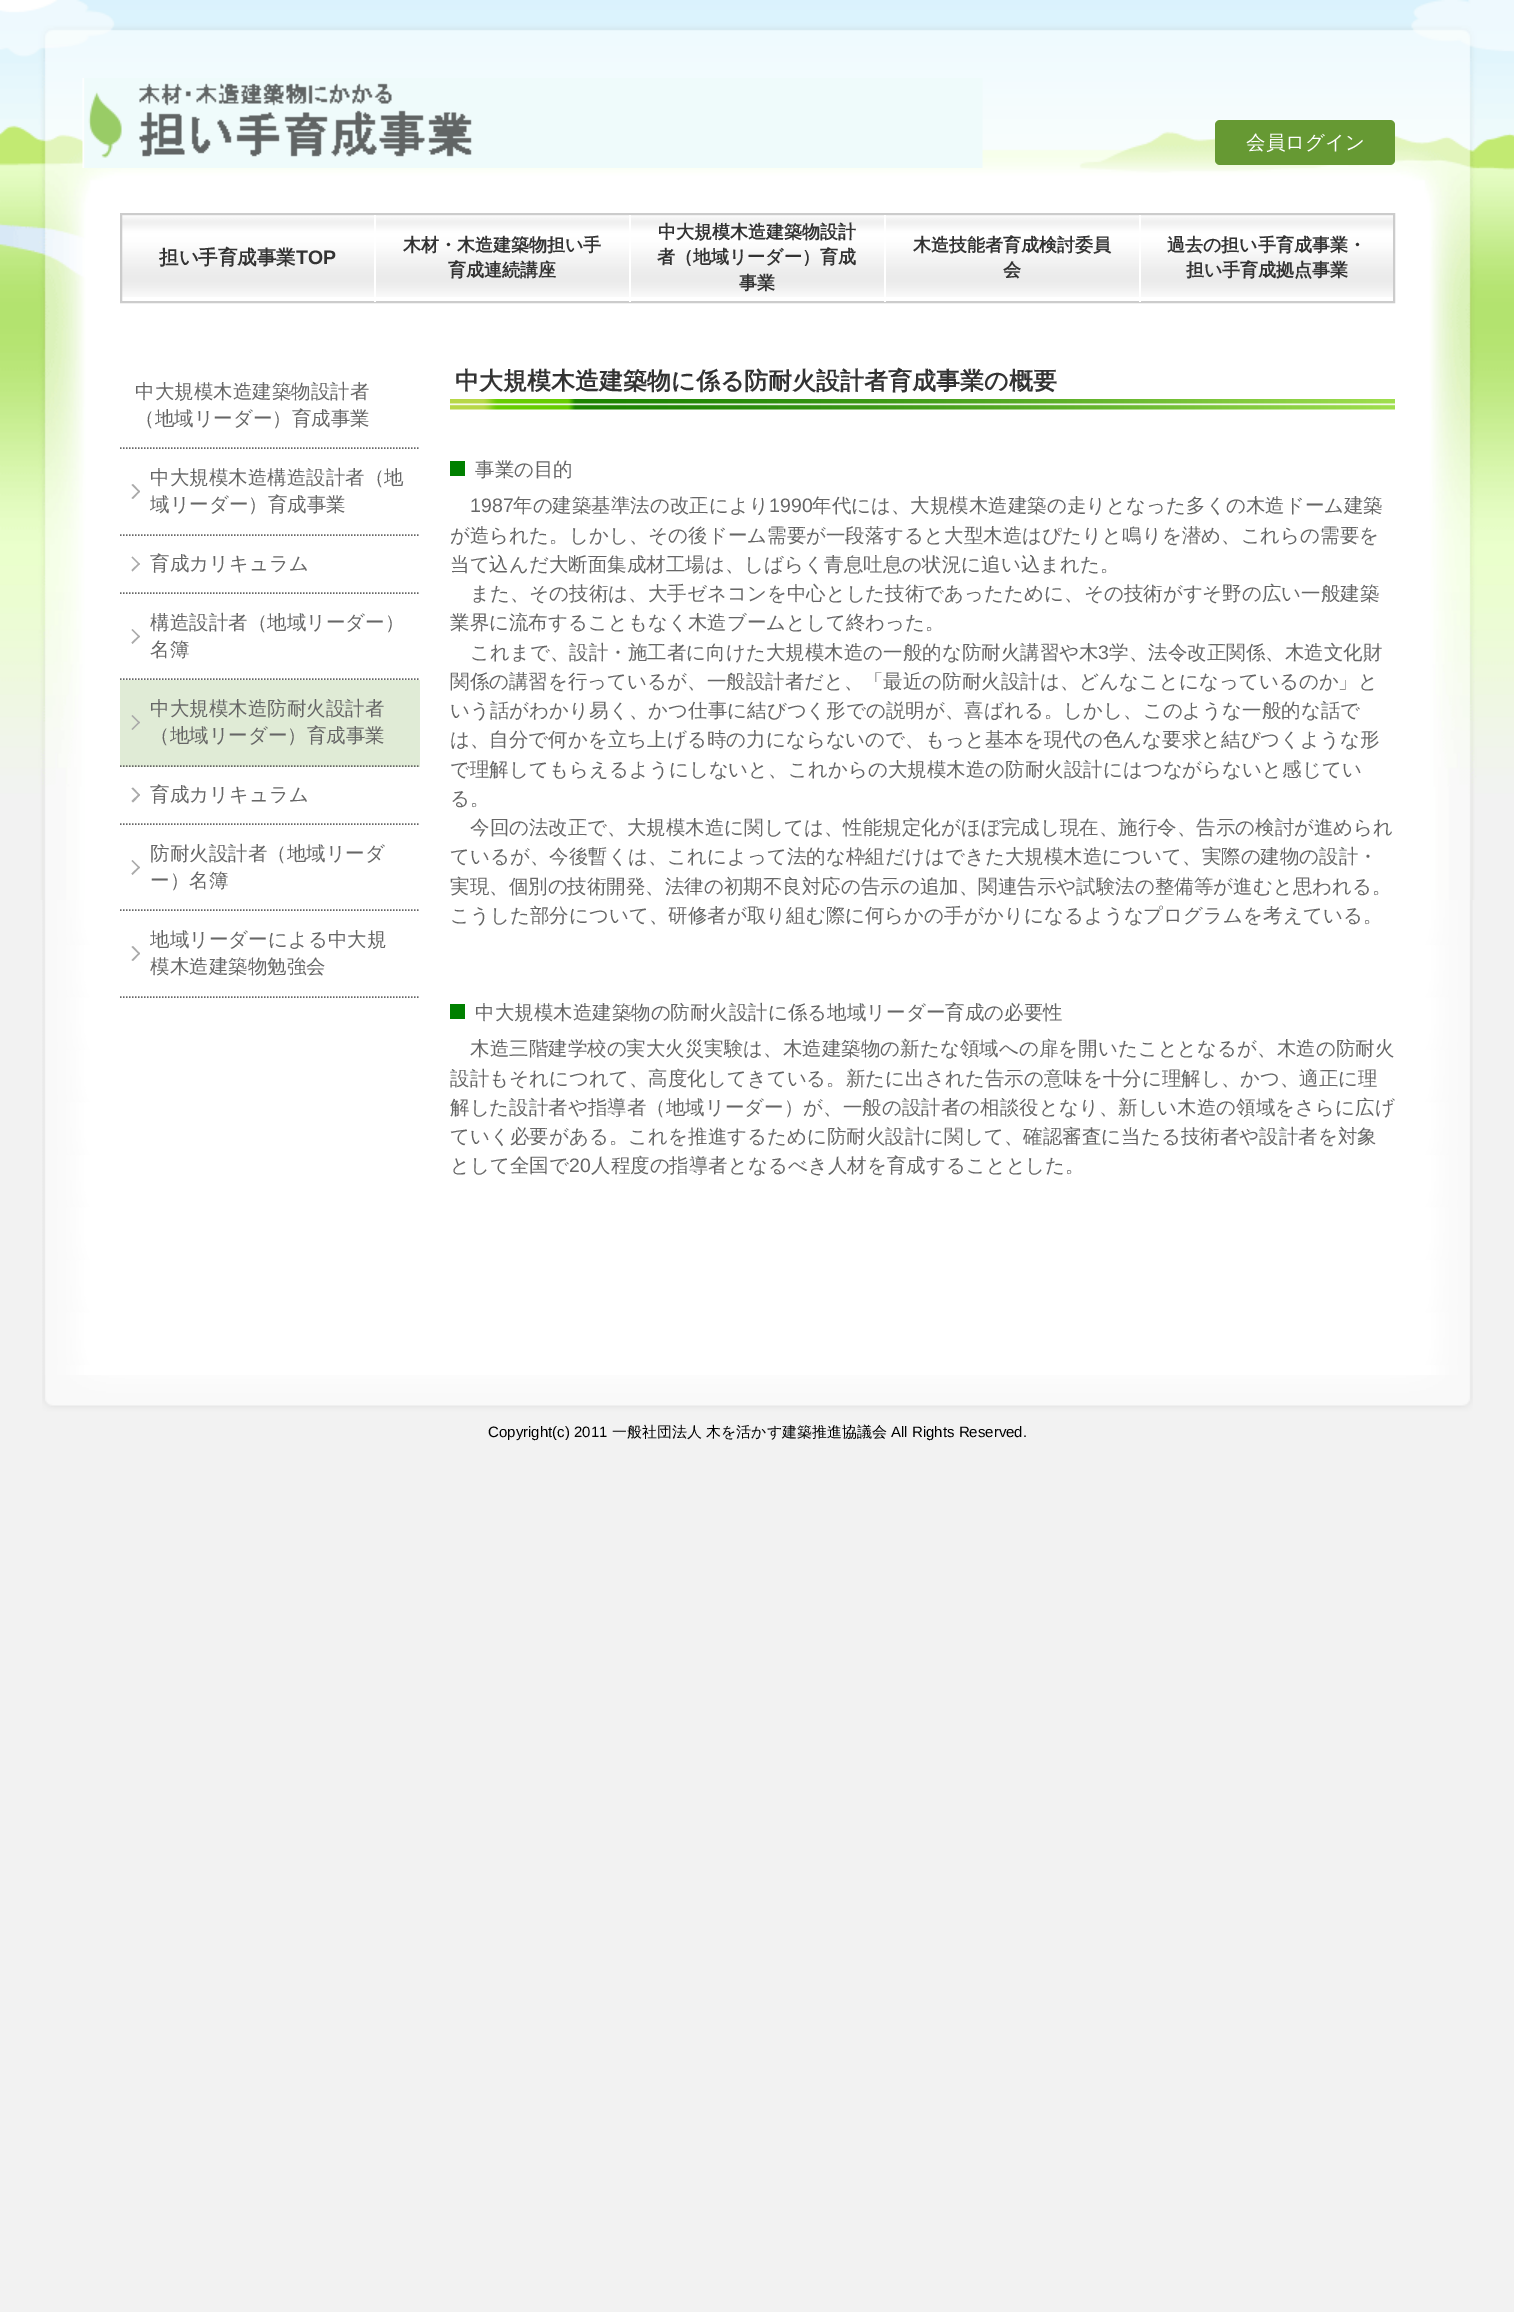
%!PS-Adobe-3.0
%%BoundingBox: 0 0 1514 2312
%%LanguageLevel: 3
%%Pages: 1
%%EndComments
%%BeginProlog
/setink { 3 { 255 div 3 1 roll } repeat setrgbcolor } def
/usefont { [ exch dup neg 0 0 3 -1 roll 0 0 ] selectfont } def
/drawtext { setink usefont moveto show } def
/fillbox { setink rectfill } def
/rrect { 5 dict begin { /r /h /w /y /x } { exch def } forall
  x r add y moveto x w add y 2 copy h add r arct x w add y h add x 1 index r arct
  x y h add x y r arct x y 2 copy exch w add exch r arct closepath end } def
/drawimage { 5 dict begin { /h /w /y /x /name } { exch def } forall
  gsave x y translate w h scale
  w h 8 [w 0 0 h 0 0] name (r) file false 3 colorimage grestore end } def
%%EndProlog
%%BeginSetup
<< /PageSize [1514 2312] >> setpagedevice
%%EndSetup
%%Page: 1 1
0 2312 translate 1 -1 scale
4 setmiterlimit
0 0 1514 2312 242 242 242 fillbox
(assets/img1.rgb) 42 900 1431 475 drawimage
(assets/img2.rgb) 0 0 1514 900 drawimage
(assets/img3.rgb) 82 78 901 90 drawimage
102 153 51 setink
1215 120 180 45 5 rrect fill
(会員ログイン) 1246 149 /WenQuanYiZenHei-Medium 19.5 255 255 255 drawtext
(assets/img4.rgb) 122 216 1271 81 drawimage
204 204 204 setink
2 setlinewidth
121 214 1273 88 rectstroke
(担い手育成事業) 159 264 /WenQuanYiZenHei-Bold 19.5 51 51 51 drawtext
(TOP) 296 264 /LiberationSans-Bold 19.5 51 51 51 drawtext
374 215 2 87 255 255 255 fillbox
(木材・木造建築物担い手) 403 251 /WenQuanYiZenHei-Bold 18 51 51 51 drawtext
(育成連続講座) 448 276 /WenQuanYiZenHei-Bold 18 51 51 51 drawtext
629 215 2 87 255 255 255 fillbox
(中大規模木造建築物設計) 658 238 /WenQuanYiZenHei-Bold 18 51 51 51 drawtext
(者（地域リーダー）育成) 657 263 /WenQuanYiZenHei-Bold 18 51 51 51 drawtext
(事業) 739 289 /WenQuanYiZenHei-Bold 18 51 51 51 drawtext
884 215 2 87 255 255 255 fillbox
(木造技能者育成検討委員) 913 251 /WenQuanYiZenHei-Bold 18 51 51 51 drawtext
(会) 1003 276 /WenQuanYiZenHei-Bold 18 51 51 51 drawtext
1139 215 2 87 255 255 255 fillbox
(過去の担い手育成事業・) 1167 251 /WenQuanYiZenHei-Bold 18 51 51 51 drawtext
(担い手育成拠点事業) 1186 276 /WenQuanYiZenHei-Bold 18 51 51 51 drawtext
102 102 102 setink
1.5 setlinewidth
[1.5 1.5] 0 setdash
120 448 moveto 420 448 lineto stroke
(中大規模木造建築物設計者) 135 398 /WenQuanYiZenHei-Medium 19.5 102 102 102 drawtext
(（地域リーダー）育成事業) 135 425 /WenQuanYiZenHei-Medium 19.5 102 102 102 drawtext
120 535 moveto 420 535 lineto stroke
(中大規模木造構造設計者（地) 150 484 /WenQuanYiZenHei-Medium 19.5 102 102 102 drawtext
170 170 170 setink
133 484 moveto 140 491.5 lineto 139 492.5 lineto 131.5 485 lineto closepath fill
139 490.5 moveto 140 491.5 lineto 133 499 lineto 131.5 498 lineto closepath fill
(域リーダー）育成事業) 150 511 /WenQuanYiZenHei-Medium 19.5 102 102 102 drawtext
120 593 moveto 420 593 lineto stroke
170 170 170 setink
132.5 556.5 moveto 140 564 lineto 139 565 lineto 131.5 557.5 lineto closepath fill
139 563 moveto 140 564 lineto 132.5 571.5 lineto 131.5 570 lineto closepath fill
(育成カリキュラム) 150 570 /WenQuanYiZenHei-Medium 19.5 102 102 102 drawtext
120 679 moveto 420 679 lineto stroke
(構造設計者（地域リーダー）) 150 629 /WenQuanYiZenHei-Medium 19.5 102 102 102 drawtext
170 170 170 setink
132.5 629 moveto 140 636.5 lineto 139 637.5 lineto 131.5 630 lineto closepath fill
139 635.5 moveto 140 636.5 lineto 132.5 644 lineto 131.5 642.5 lineto closepath fill
(名簿) 150 656 /WenQuanYiZenHei-Medium 19.5 102 102 102 drawtext
120 680 300 87 224 235 214 fillbox
102 102 102 setink
120 766 moveto 420 766 lineto stroke
(中大規模木造防耐火設計者) 150 715 /WenQuanYiZenHei-Medium 19.5 102 102 102 drawtext
170 170 170 setink
132.5 715 moveto 140 722.5 lineto 139 723.5 lineto 131.5 716 lineto closepath fill
139 721.5 moveto 140 722.5 lineto 132.5 730 lineto 131.5 729 lineto closepath fill
(（地域リーダー）育成事業) 150 742 /WenQuanYiZenHei-Medium 19.5 102 102 102 drawtext
120 824 moveto 420 824 lineto stroke
170 170 170 setink
133 787.5 moveto 140 795 lineto 139 796 lineto 131.5 788.5 lineto closepath fill
139 794 moveto 140 795 lineto 133 802.5 lineto 131.5 801 lineto closepath fill
(育成カリキュラム) 150 801 /WenQuanYiZenHei-Medium 19.5 102 102 102 drawtext
120 910 moveto 420 910 lineto stroke
(防耐火設計者（地域リーダ) 150 860 /WenQuanYiZenHei-Medium 19.5 102 102 102 drawtext
170 170 170 setink
132.5 860 moveto 140 867.5 lineto 139 868.5 lineto 131.5 861 lineto closepath fill
139 866.5 moveto 140 867.5 lineto 132.5 875 lineto 131.5 873.5 lineto closepath fill
(ー）名簿) 150 887 /WenQuanYiZenHei-Medium 19.5 102 102 102 drawtext
120 997 moveto 420 997 lineto stroke
(地域リーダーによる中大規) 150 946 /WenQuanYiZenHei-Medium 19.5 102 102 102 drawtext
170 170 170 setink
133 946 moveto 140 953.5 lineto 139 954.5 lineto 131.5 947 lineto closepath fill
139 952.5 moveto 140 953.5 lineto 133 961 lineto 131.5 960 lineto closepath fill
(模木造建築物勉強会) 150 973 /WenQuanYiZenHei-Medium 19.5 102 102 102 drawtext
(assets/img5.rgb) 450 399 945 11 drawimage
(中大規模木造建築物に係る防耐火設計者育成事業の概要) 455 389 /WenQuanYiZenHei-Bold 24 51 51 51 drawtext
450 461 15 15 0 128 0 fillbox
(事業の目的) 475 476 /WenQuanYiZenHei-Medium 19.5 102 102 102 drawtext
(1987) 470 512 /LiberationSans-Regular 19.5 102 102 102 drawtext
(年の建築基準法の改正により) 513 512 /WenQuanYiZenHei-Medium 19.5 102 102 102 drawtext
(1990) 769 512 /LiberationSans-Regular 19.5 102 102 102 drawtext
(年代には、大規模木造建築の走りとなった多くの木造ドーム建築) 812 512 /WenQuanYiZenHei-Medium 19.5 102 102 102 drawtext
(が造られた。しかし、その後ドーム需要が一段落すると大型木造はぴたりと鳴りを潜め、これらの需要を) 450 542 /WenQuanYiZenHei-Medium 19.5 102 102 102 drawtext
(当て込んだ大断面集成材工場は、しばらく青息吐息の状況に追い込まれた。) 450 571 /WenQuanYiZenHei-Medium 19.5 102 102 102 drawtext
(また、その技術は、大手ゼネコンを中心とした技術であったために、その技術がすそ野の広い一般建築) 470 600 /WenQuanYiZenHei-Medium 19.5 102 102 102 drawtext
(業界に流布することもなく木造ブームとして終わった。) 450 629 /WenQuanYiZenHei-Medium 19.5 102 102 102 drawtext
(これまで、設計・施工者に向けた大規模木造の一般的な防耐火講習や木) 470 659 /WenQuanYiZenHei-Medium 19.5 102 102 102 drawtext
(3) 1098 659 /LiberationSans-Regular 19.5 102 102 102 drawtext
(学、法令改正関係、木造文化財) 1109 659 /WenQuanYiZenHei-Medium 19.5 102 102 102 drawtext
(関係の講習を行っているが、一般設計者だと、「最近の防耐火設計は、どんなことになっているのか」と) 450 688 /WenQuanYiZenHei-Medium 19.5 102 102 102 drawtext
(いう話がわかり易く、かつ仕事に結びつく形での説明が、喜ばれる。しかし、このような一般的な話で) 450 717 /WenQuanYiZenHei-Medium 19.5 102 102 102 drawtext
(は、自分で何かを立ち上げる時の力にならないので、もっと基本を現代の色んな要求と結びつくような形) 450 746 /WenQuanYiZenHei-Medium 19.5 102 102 102 drawtext
(で理解してもらえるようにしないと、これからの大規模木造の防耐火設計にはつながらないと感じてい) 450 776 /WenQuanYiZenHei-Medium 19.5 102 102 102 drawtext
(る。) 450 805 /WenQuanYiZenHei-Medium 19.5 102 102 102 drawtext
(今回の法改正で、大規模木造に関しては、性能規定化がほぼ完成し現在、施行令、告示の検討が進められ) 470 834 /WenQuanYiZenHei-Medium 19.5 102 102 102 drawtext
(ているが、今後暫くは、これによって法的な枠組だけはできた大規模木造について、実際の建物の設計・) 450 863 /WenQuanYiZenHei-Medium 19.5 102 102 102 drawtext
(実現、個別の技術開発、法律の初期不良対応の告示の追加、関連告示や試験法の整備等が進むと思われる。) 450 893 /WenQuanYiZenHei-Medium 19.5 102 102 102 drawtext
(こうした部分について、研修者が取り組む際に何らかの手がかりになるようなプログラムを考えている。) 450 922 /WenQuanYiZenHei-Medium 19.5 102 102 102 drawtext
450 1004 15 15 0 128 0 fillbox
(中大規模木造建築物の防耐火設計に係る地域リーダー育成の必要性) 475 1019 /WenQuanYiZenHei-Medium 19.5 102 102 102 drawtext
(木造三階建学校の実大火災実験は、木造建築物の新たな領域への扉を開いたこととなるが、木造の防耐火) 470 1055 /WenQuanYiZenHei-Medium 19.5 102 102 102 drawtext
(設計もそれにつれて、高度化してきている。新たに出された告示の意味を十分に理解し、かつ、適正に理) 450 1085 /WenQuanYiZenHei-Medium 19.5 102 102 102 drawtext
(解した設計者や指導者（地域リーダー）が、一般の設計者の相談役となり、新しい木造の領域をさらに広げ) 450 1114 /WenQuanYiZenHei-Medium 19.5 102 102 102 drawtext
(ていく必要がある。これを推進するために防耐火設計に関して、確認審査に当たる技術者や設計者を対象) 450 1143 /WenQuanYiZenHei-Medium 19.5 102 102 102 drawtext
(として全国で) 450 1172 /WenQuanYiZenHei-Medium 19.5 102 102 102 drawtext
(20) 569 1172 /LiberationSans-Regular 19.5 102 102 102 drawtext
(人程度の指導者となるべき人材を育成することとした。) 591 1172 /WenQuanYiZenHei-Medium 19.5 102 102 102 drawtext
(assets/img6.rgb) 42 1375 1431 38 drawimage
(Copyright\(c\) 2011) 488 1437 /LiberationSans-Regular 15 0 0 0 drawtext
(一般社団法人) 612 1437 /WenQuanYiZenHei-Medium 15 0 0 0 drawtext
(木を活かす建築推進協議会) 706 1437 /WenQuanYiZenHei-Medium 15 0 0 0 drawtext
(All Rights Reserved.) 891 1437 /LiberationSans-Regular 15 0 0 0 drawtext
showpage
%%EOF
